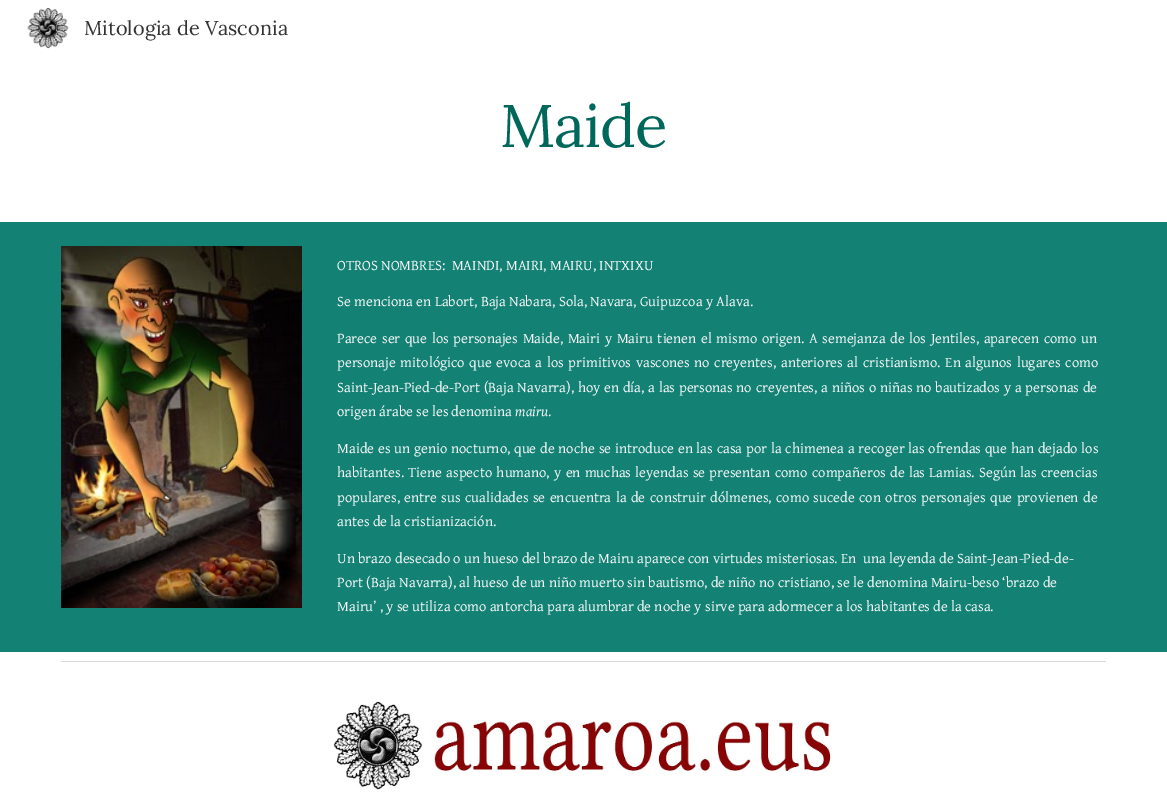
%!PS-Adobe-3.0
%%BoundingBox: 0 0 1167 802
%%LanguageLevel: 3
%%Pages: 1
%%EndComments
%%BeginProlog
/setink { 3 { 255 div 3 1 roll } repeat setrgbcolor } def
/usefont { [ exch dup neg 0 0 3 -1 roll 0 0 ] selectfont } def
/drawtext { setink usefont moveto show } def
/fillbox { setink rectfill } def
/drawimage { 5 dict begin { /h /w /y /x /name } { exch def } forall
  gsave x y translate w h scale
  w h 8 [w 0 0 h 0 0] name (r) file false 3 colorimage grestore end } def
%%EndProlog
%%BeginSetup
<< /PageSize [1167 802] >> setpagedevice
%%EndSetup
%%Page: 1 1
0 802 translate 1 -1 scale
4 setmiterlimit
0 0 1167 802 255 255 255 fillbox
(assets/img1.rgb) 27 8 42 41 drawimage
(Mitologia de Vasconia) 84 35 /Lora-Regular 20 51 51 51 drawtext
/Lora-Regular 60 usefont
0 104 91 setink
500 147 moveto -1 0 (Maide) ashow
0 222 1167 430 19 130 117 fillbox
(assets/img2.rgb) 61 246 241 362 drawimage
(OTROS NOMBRES:  MAINDI, MAIRI, MAIRU, INTXIXU) 337 270 /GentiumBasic-Regular 14.67 255 255 255 drawtext
(Se menciona en Labort, Baja Nabara, Sola, Navara, Guipuzcoa y Alava.) 337 306 /GentiumBasic-Regular 14.67 255 255 255 drawtext
337 343 moveto 1.5 0 32 (Parece ser que los personajes Maide, Mairi y Mairu tienen el mismo origen. A semejanza de los Jentiles, aparecen como un) widthshow
337 367 moveto 1.4 0 32 (personaje mitológico que evoca a los primitivos vascones no creyentes, anteriores al cristianismo. En algunos lugares como) widthshow
337 392 moveto 0.5 0 32 (Saint-Jean-Pied-de-Port \(Baja Navarra\), hoy en día, a las personas no creyentes, a niños o niñas no bautizados y a personas de) widthshow
(origen árabe se les denomina) 337 416 /GentiumBasic-Regular 14.67 255 255 255 drawtext
(mairu) 515 416 /GentiumBasic-Italic 14.67 255 255 255 drawtext
(.) 548 416 /GentiumBasic-Regular 14.67 255 255 255 drawtext
337 453 moveto 0.6 0 32 (Maide es un genio nocturno, que de noche se introduce en las casa por la chimenea a recoger las ofrendas que han dejado los) widthshow
337 477 moveto 1.1 0 32 (habitantes. Tiene aspecto humano, y en muchas leyendas se presentan como compañeros de las Lamias. Según las creencias) widthshow
337 502 moveto 1.25 0 32 (populares, entre sus cualidades se encuentra la de construir dólmenes, como sucede con otros personajes que provienen de) widthshow
(antes de la cristianización.) 337 526 /GentiumBasic-Regular 14.67 255 255 255 drawtext
(Un brazo desecado o un hueso del brazo de Mairu aparece con virtudes misteriosas. En  una leyenda de Saint-Jean-Pied-de-) 337 563 /GentiumBasic-Regular 14.67 255 255 255 drawtext
(Port \(Baja Navarra\), al hueso de un niño muerto sin bautismo, de niño no cristiano, se le denomina Mairu-beso ‘brazo de) 337 587 /GentiumBasic-Regular 14.67 255 255 255 drawtext
(Mairu’ , y se utiliza como antorcha para alumbrar de noche y sirve para adormecer a los habitantes de la casa.) 337 611 /GentiumBasic-Regular 14.67 255 255 255 drawtext
61 661 1045 1 217 217 217 fillbox
(assets/img3.rgb) 333 701 499 89 drawimage
showpage
%%EOF
